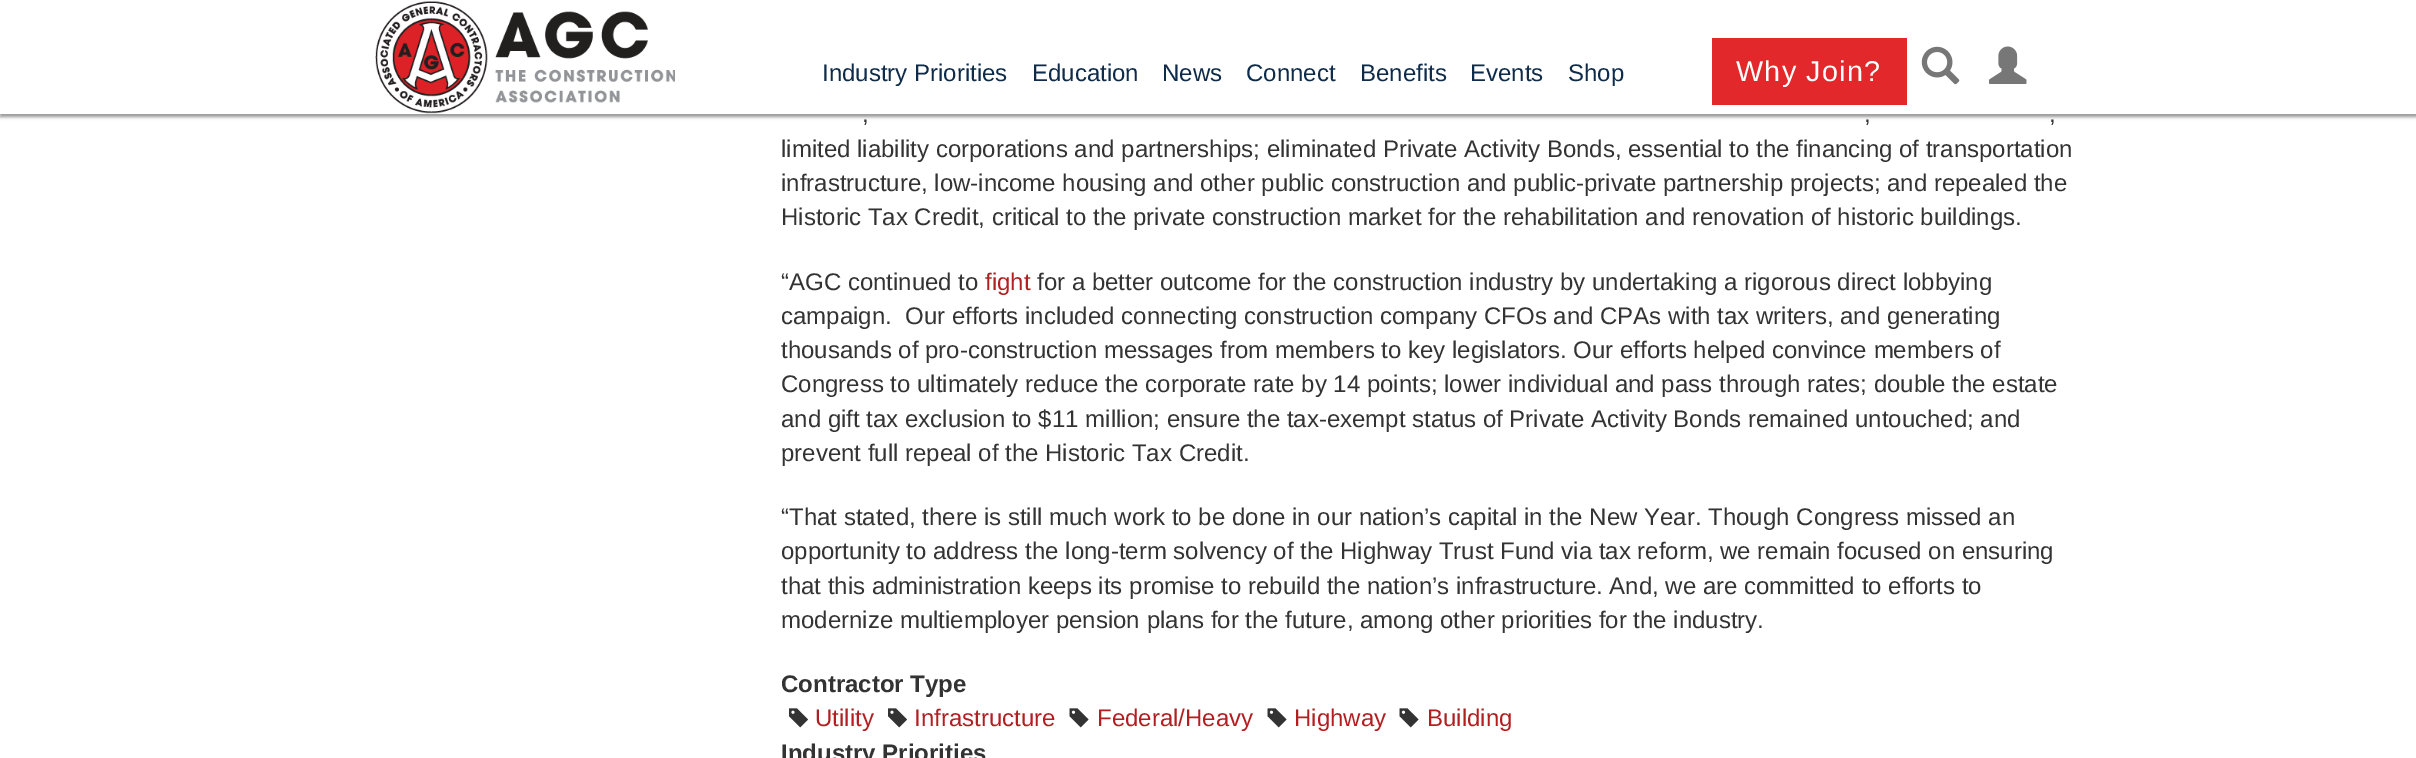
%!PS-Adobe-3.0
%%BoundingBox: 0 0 2416 758
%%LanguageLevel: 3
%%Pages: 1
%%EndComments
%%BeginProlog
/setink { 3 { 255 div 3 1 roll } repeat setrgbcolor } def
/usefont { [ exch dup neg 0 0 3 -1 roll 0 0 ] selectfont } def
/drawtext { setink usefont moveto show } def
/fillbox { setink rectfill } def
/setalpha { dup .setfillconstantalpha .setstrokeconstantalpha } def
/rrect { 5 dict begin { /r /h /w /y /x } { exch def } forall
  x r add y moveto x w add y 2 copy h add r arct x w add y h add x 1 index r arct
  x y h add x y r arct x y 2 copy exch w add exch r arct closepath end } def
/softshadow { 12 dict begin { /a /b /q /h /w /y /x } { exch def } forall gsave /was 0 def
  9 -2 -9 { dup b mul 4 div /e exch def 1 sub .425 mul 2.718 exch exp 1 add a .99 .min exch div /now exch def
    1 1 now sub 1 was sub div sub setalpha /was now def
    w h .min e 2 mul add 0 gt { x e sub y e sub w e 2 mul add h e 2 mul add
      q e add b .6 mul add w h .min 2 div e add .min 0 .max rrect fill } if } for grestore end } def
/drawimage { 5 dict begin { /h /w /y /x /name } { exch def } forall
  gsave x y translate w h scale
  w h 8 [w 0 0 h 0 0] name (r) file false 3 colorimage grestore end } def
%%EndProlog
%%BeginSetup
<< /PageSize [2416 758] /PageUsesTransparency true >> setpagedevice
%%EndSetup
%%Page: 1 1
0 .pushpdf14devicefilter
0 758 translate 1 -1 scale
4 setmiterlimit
0 0 2416 758 255 255 255 fillbox
153 153 153 setink
0 3 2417 114 0 1.5 1 softshadow
0 0 2416 114 255 255 255 fillbox
(assets/img1.rgb) 375 1 300 113 drawimage
(Industry Priorities) 822 81 /LiberationSans-Regular 24 14 43 74 drawtext
(Education) 1032 81 /LiberationSans-Regular 24 14 43 74 drawtext
(News) 1162 81 /LiberationSans-Regular 24 14 43 74 drawtext
(Connect) 1246 81 /LiberationSans-Regular 24 14 43 74 drawtext
(Benefits) 1360 81 /LiberationSans-Regular 24 14 43 74 drawtext
(Events) 1470 81 /LiberationSans-Regular 24 14 43 74 drawtext
(Shop) 1568 81 /LiberationSans-Regular 24 14 43 74 drawtext
1712 38 195 67 226 40 42 fillbox
/LiberationSans-Regular 28.75 usefont
255 255 255 setink
1736 81 moveto 1.25 0 (Why Join?) ashow
(assets/img2.rgb) 1921 46 39 39 drawimage
(assets/img3.rgb) 1989 46 38 38 drawimage
(,) 862 122 /LiberationSans-Regular 24 51 51 51 drawtext
(,) 1864 122 /LiberationSans-Regular 24 51 51 51 drawtext
(,) 2049 122 /LiberationSans-Regular 24 51 51 51 drawtext
(limited liability corporations and partnerships; eliminated Private Activity Bonds, essential to the financing of transportation) 781 157 /LiberationSans-Regular 24 51 51 51 drawtext
(infrastructure, low-income housing and other public construction and public-private partnership projects; and repealed the) 781 191 /LiberationSans-Regular 24 51 51 51 drawtext
(Historic Tax Credit, critical to the private construction market for the rehabilitation and renovation of historic buildings.) 781 225 /LiberationSans-Regular 24 51 51 51 drawtext
(“AGC continued to) 781 290 /LiberationSans-Regular 24 51 51 51 drawtext
(fight) 985 290 /LiberationSans-Regular 24 177 31 33 drawtext
(for a better outcome for the construction industry by undertaking a rigorous direct lobbying) 1037 290 /LiberationSans-Regular 24 51 51 51 drawtext
(campaign.  Our efforts included connecting construction company CFOs and CPAs with tax writers, and generating) 781 324 /LiberationSans-Regular 24 51 51 51 drawtext
(thousands of pro-construction messages from members to key legislators. Our efforts helped convince members of) 781 358 /LiberationSans-Regular 24 51 51 51 drawtext
(Congress to ultimately reduce the corporate rate by 14 points; lower individual and pass through rates; double the estate) 781 392 /LiberationSans-Regular 24 51 51 51 drawtext
(and gift tax exclusion to $11 million; ensure the tax-exempt status of Private Activity Bonds remained untouched; and) 781 427 /LiberationSans-Regular 24 51 51 51 drawtext
(prevent full repeal of the Historic Tax Credit.) 781 461 /LiberationSans-Regular 24 51 51 51 drawtext
(“That stated, there is still much work to be done in our nation’s capital in the New Year. Though Congress missed an) 781 525 /LiberationSans-Regular 24 51 51 51 drawtext
(opportunity to address the long-term solvency of the Highway Trust Fund via tax reform, we remain focused on ensuring) 781 559 /LiberationSans-Regular 24 51 51 51 drawtext
(that this administration keeps its promise to rebuild the nation’s infrastructure. And, we are committed to efforts to) 781 594 /LiberationSans-Regular 24 51 51 51 drawtext
(modernize multiemployer pension plans for the future, among other priorities for the industry.) 781 628 /LiberationSans-Regular 24 51 51 51 drawtext
(Contractor Type) 781 692 /LiberationSans-Bold 24 51 51 51 drawtext
(assets/img4.rgb) 789 708 19 20 drawimage
(Utility) 815 726 /LiberationSans-Regular 24 177 31 33 drawtext
(assets/img4.rgb) 888 708 19 20 drawimage
(Infrastructure) 914 726 /LiberationSans-Regular 24 177 31 33 drawtext
(assets/img5.rgb) 1069 708 20 20 drawimage
(Federal/Heavy) 1097 726 /LiberationSans-Regular 24 177 31 33 drawtext
(assets/img5.rgb) 1267 708 20 20 drawimage
(Highway) 1294 726 /LiberationSans-Regular 24 177 31 33 drawtext
(assets/img5.rgb) 1399 708 20 20 drawimage
(Building) 1427 726 /LiberationSans-Regular 24 177 31 33 drawtext
(Industry Priorities) 781 761 /LiberationSans-Bold 24 51 51 51 drawtext
.poppdf14devicefilter showpage
%%EOF
